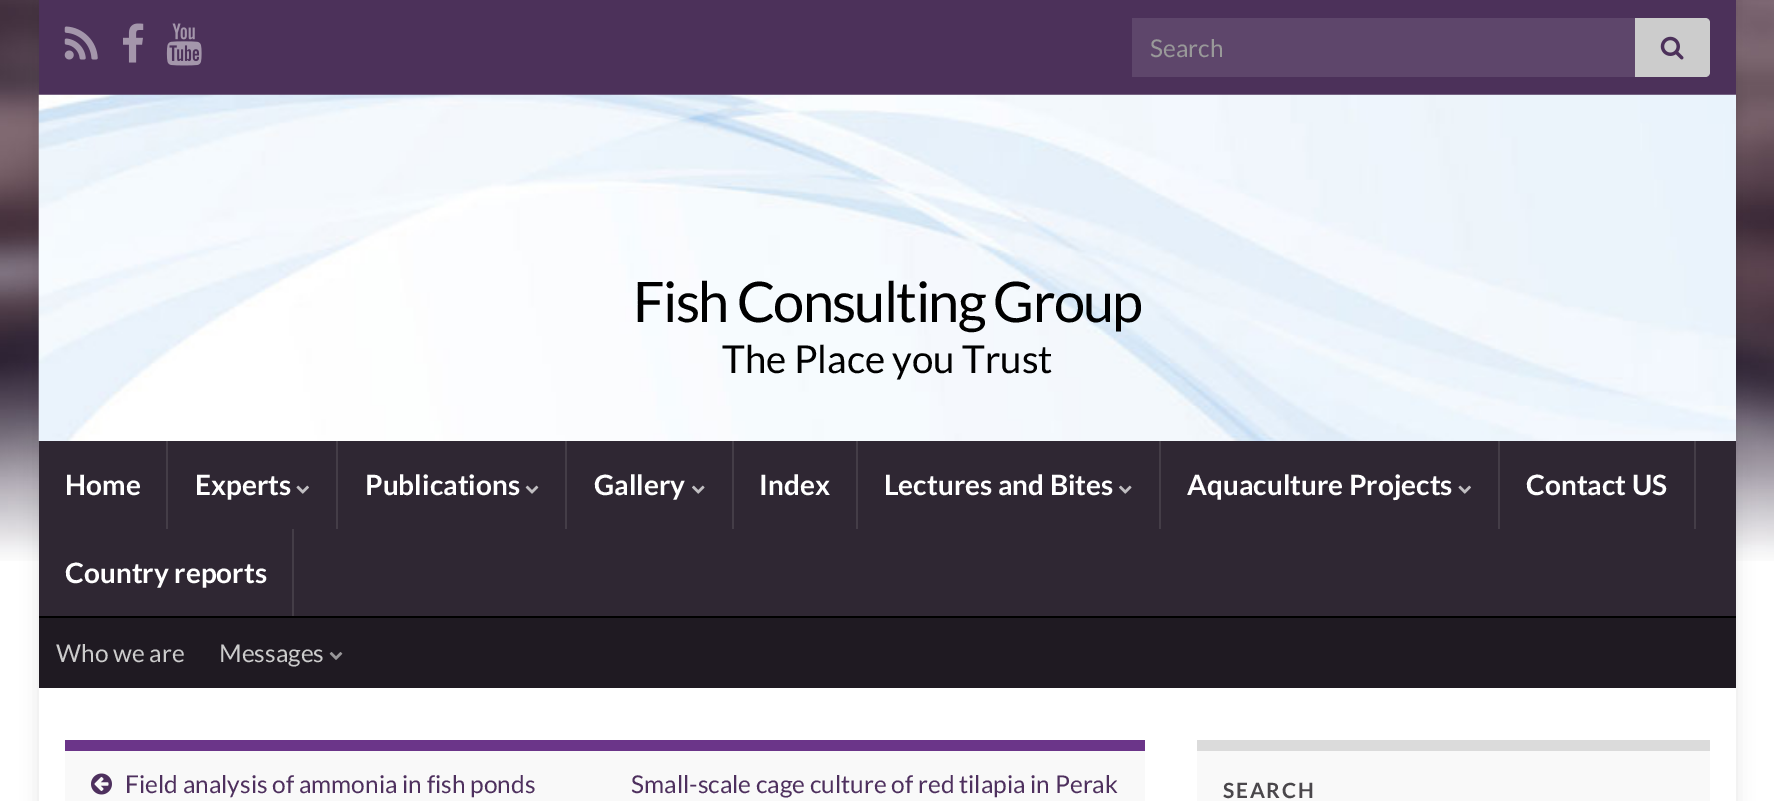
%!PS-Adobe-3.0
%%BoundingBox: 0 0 1774 801
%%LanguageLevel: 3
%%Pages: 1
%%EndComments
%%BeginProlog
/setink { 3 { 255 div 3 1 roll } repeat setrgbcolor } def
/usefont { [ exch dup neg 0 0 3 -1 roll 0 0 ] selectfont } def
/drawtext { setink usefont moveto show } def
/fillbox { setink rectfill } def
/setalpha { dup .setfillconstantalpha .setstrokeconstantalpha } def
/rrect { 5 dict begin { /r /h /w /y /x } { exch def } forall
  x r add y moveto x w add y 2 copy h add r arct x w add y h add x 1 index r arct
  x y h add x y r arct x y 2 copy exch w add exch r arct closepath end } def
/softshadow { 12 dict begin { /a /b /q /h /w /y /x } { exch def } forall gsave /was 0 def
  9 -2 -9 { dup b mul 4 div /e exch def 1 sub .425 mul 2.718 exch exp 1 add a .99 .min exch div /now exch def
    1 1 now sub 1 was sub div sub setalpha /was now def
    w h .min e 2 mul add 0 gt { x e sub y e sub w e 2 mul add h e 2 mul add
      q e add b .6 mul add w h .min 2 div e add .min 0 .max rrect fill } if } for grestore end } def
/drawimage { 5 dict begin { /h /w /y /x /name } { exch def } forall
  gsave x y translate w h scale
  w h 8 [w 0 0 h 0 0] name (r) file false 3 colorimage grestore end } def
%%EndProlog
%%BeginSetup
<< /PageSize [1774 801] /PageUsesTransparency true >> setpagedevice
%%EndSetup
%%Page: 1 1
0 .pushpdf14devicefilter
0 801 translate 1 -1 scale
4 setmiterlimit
0 0 1774 801 255 255 255 fillbox
(assets/img1.rgb) 0 0 1774 561 drawimage
gsave
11 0 moveto 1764 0 lineto 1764 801 lineto 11 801 lineto closepath 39 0 moveto 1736 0 lineto 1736 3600 lineto 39 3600 lineto closepath eoclip newpath
0 0 0 setink
39 0 1697 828 0 9 0.1 softshadow
grestore
39 0 1697 95 76 49 90 fillbox
(assets/img2.rgb) 64 26 34 34 drawimage
(assets/img3.rgb) 123 23 21 40 drawimage
(assets/img4.rgb) 166 23 36 43 drawimage
1132 18 503 59 94 70 107 fillbox
(Search) 1150 57 /Lato-Regular 24.5 153 153 153 drawtext
204 204 204 setink
1635 18 moveto 1705 18 lineto 1708 18 1710 20 1710 23 curveto 1710 72 lineto 1710 75 1708 77 1705 77 curveto 1635 77 lineto closepath fill
(assets/img5.rgb) 1660 36 24 24 drawimage
(assets/img6.rgb) 38 94 1698 347 drawimage
39 441 1697 175 47 39 51 fillbox
/Lato-Regular 56 usefont
0 0 0 setink
633 322 moveto -1.75 0 (Fish Consulting Group) ashow
(The Place you Trust) 722 373 /Lato-Regular 38.5 0 0 0 drawtext
166 441 2 88 68 61 71 fillbox
(Home) 65 495 /Lato-Bold 28 255 255 255 drawtext
336 441 2 88 68 61 71 fillbox
(Experts) 195 495 /Lato-Bold 28 255 255 255 drawtext
(assets/img7.rgb) 296 485 13 9 drawimage
565 441 2 88 68 61 71 fillbox
(Publications) 365 495 /Lato-Bold 28 255 255 255 drawtext
(assets/img8.rgb) 525 485 14 9 drawimage
732 441 2 88 68 61 71 fillbox
(Gallery) 594 495 /Lato-Bold 28 255 255 255 drawtext
(assets/img9.rgb) 692 485 13 9 drawimage
856 441 2 88 68 61 71 fillbox
(Index) 759 495 /Lato-Bold 28 255 255 255 drawtext
1159 441 2 88 68 61 71 fillbox
(Lectures and Bites) 884 495 /Lato-Bold 28 255 255 255 drawtext
(assets/img9.rgb) 1119 485 13 9 drawimage
1498 441 2 88 68 61 71 fillbox
(Aquaculture Projects) 1187 495 /Lato-Bold 28 255 255 255 drawtext
(assets/img7.rgb) 1458 485 13 9 drawimage
1694 441 2 88 68 61 71 fillbox
(Contact US) 1526 495 /Lato-Bold 28 255 255 255 drawtext
292 529 2 87 68 61 71 fillbox
(Country reports) 65 583 /Lato-Bold 28 255 255 255 drawtext
39 618 1697 70 31 26 34 fillbox
39 616 1697 2 0 0 0 fillbox
(Who we are) 56 662 /Lato-Regular 24.5 204 204 204 drawtext
(Messages) 219 662 /Lato-Regular 24.5 204 204 204 drawtext
(assets/img10.rgb) 329 652 14 8 drawimage
65 751 1080 50 249 249 249 fillbox
65 740 1080 11 107 53 137 fillbox
(assets/img11.rgb) 91 773 21 22 drawimage
(Field analysis of ammonia in fish ponds) 125 793 /Lato-Regular 24.5 78 48 94 drawtext
(Small-scale cage culture of red tilapia in Perak) 631 793 /Lato-Regular 24.5 78 48 94 drawtext
1197 751 513 50 249 249 249 fillbox
1197 740 513 11 219 219 219 fillbox
/Lato-Bold 21 usefont
74 71 75 setink
1223 798 moveto 1.75 0 (SEARCH) ashow
.poppdf14devicefilter showpage
%%EOF
